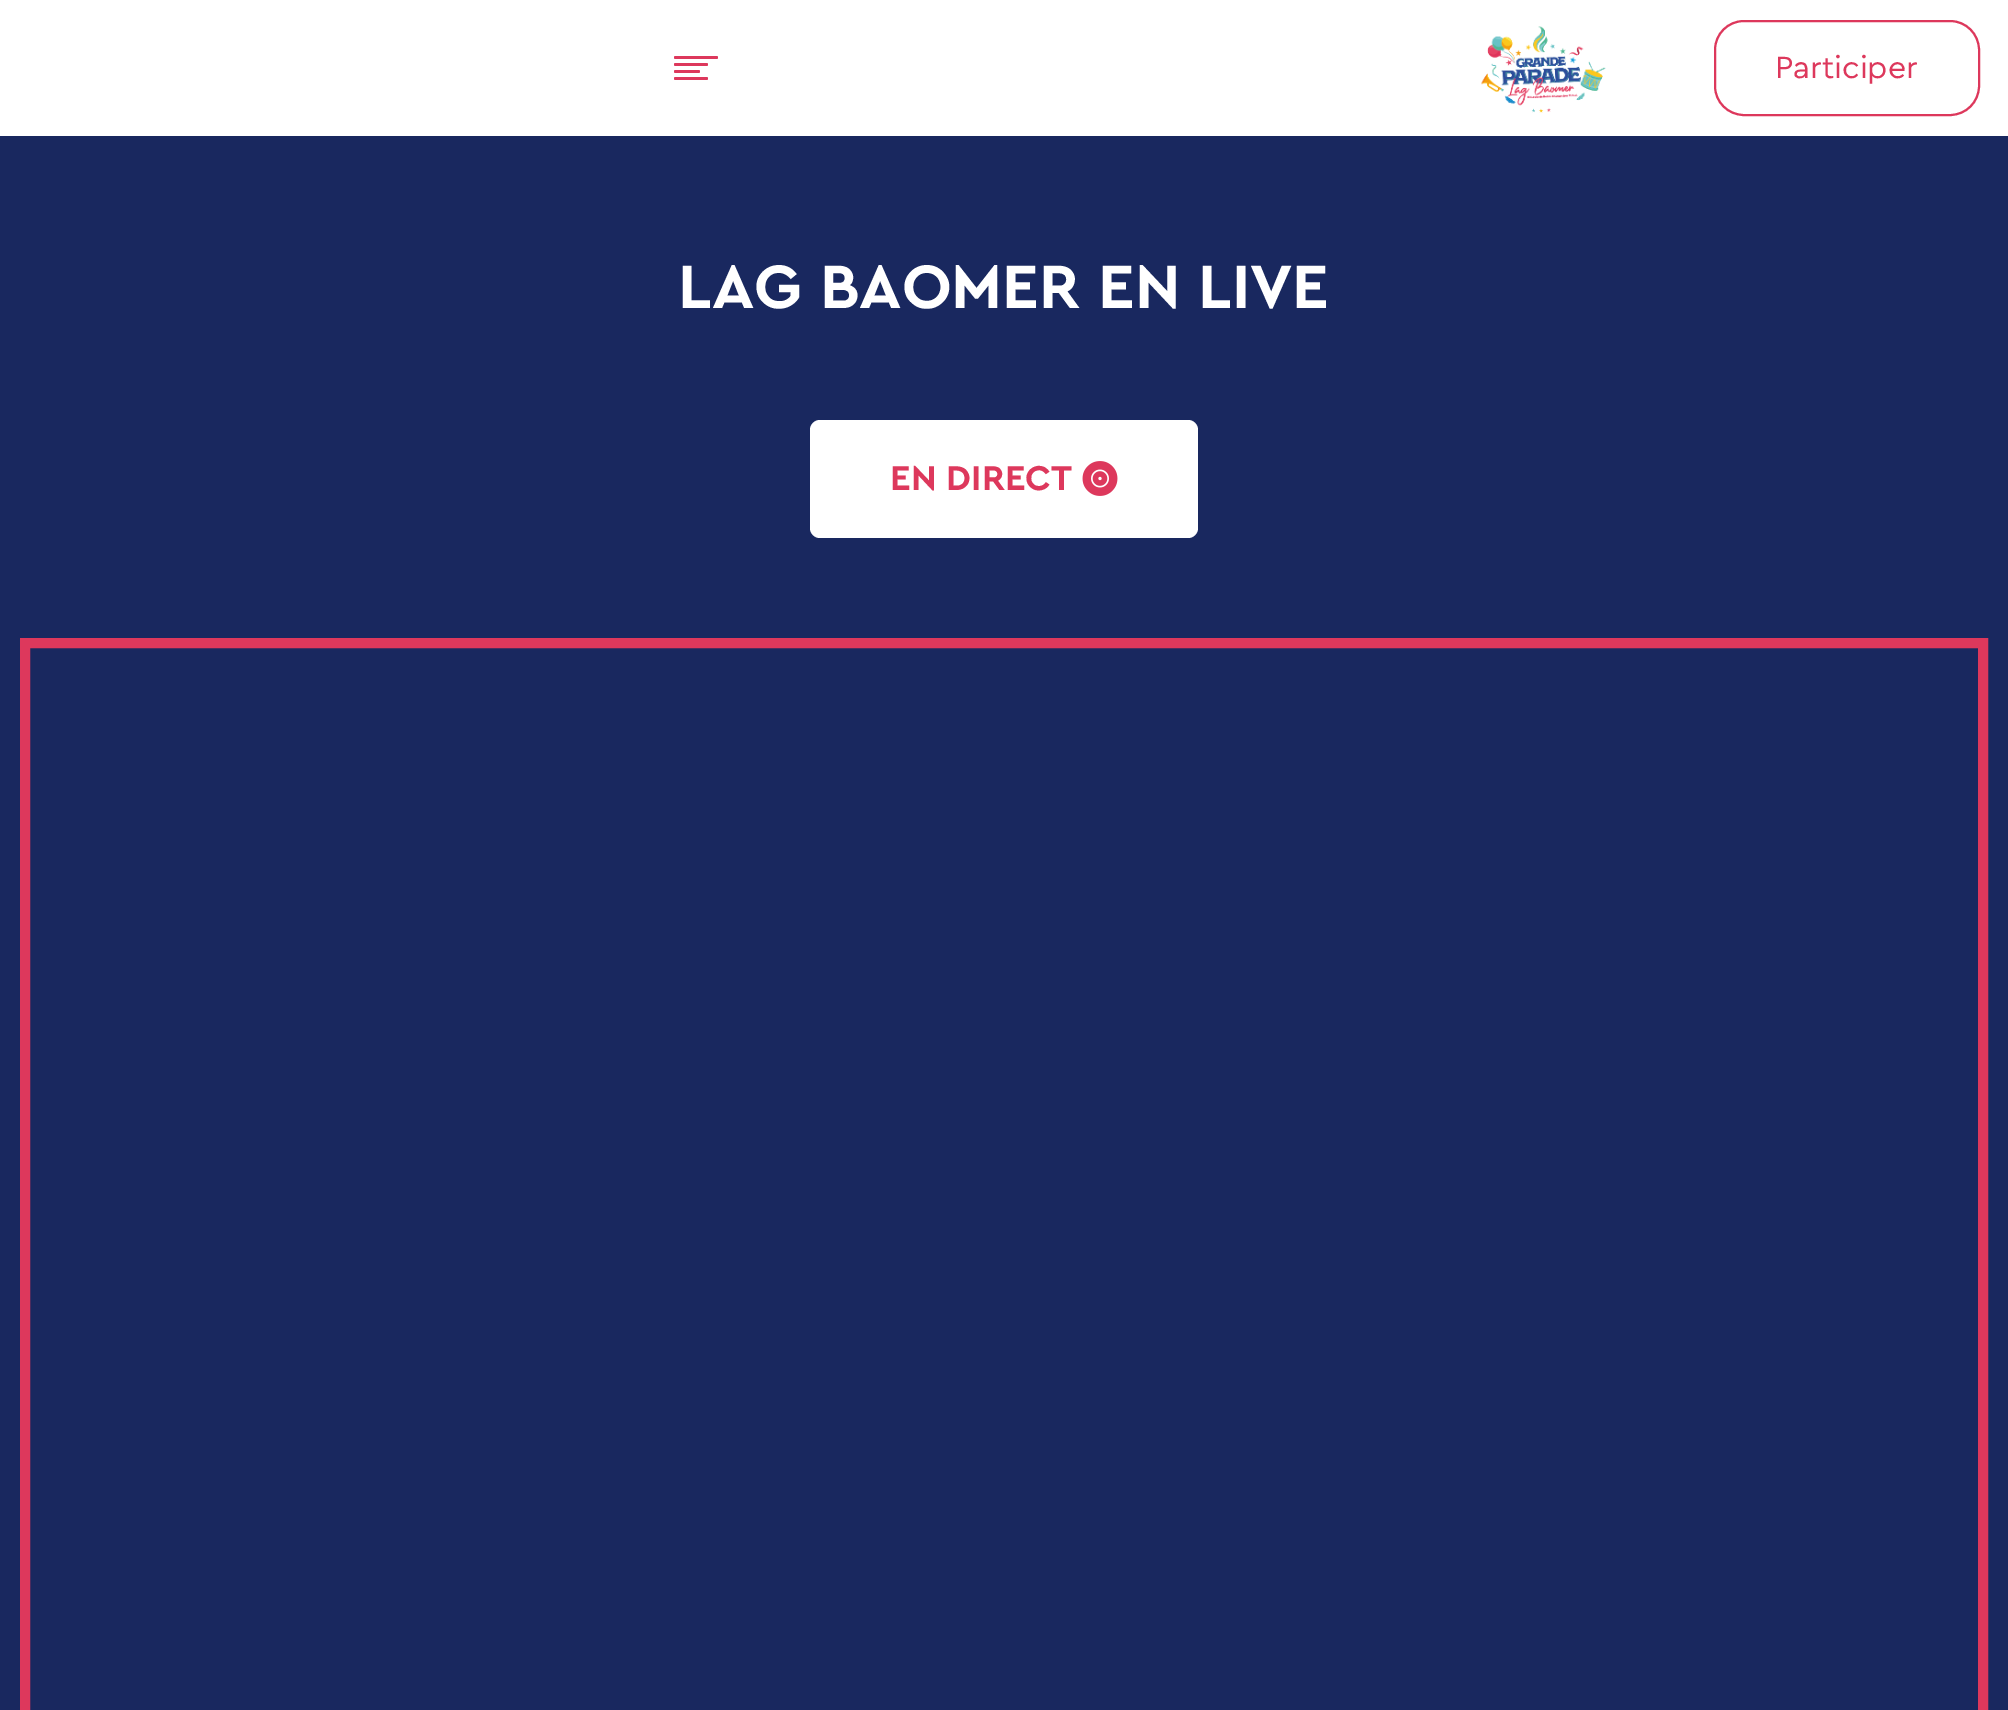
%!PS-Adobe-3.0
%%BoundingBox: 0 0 2008 1710
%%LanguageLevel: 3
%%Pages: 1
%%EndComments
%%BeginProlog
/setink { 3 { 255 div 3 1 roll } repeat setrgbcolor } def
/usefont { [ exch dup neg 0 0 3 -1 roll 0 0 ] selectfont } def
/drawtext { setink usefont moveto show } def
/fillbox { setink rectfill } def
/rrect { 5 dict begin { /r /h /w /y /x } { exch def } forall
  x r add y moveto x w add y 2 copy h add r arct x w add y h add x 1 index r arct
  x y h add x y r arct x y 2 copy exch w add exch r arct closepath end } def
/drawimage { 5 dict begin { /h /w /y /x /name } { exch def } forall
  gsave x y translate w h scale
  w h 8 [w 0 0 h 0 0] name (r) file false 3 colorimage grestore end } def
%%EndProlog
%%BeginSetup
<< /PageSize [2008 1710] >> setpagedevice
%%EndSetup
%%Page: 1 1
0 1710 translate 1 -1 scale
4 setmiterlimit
0 0 2008 1710 255 255 255 fillbox
221 56 92 setink
674 56 44 3 1.5 rrect fill
674 63 34 3 1.5 rrect fill
674 70 26 3 1.5 rrect fill
674 77 34 3 1.5 rrect fill
(assets/img1.rgb) 1481 26 125 87 drawimage
2 setlinewidth
1715 21 264 94 29 rrect stroke
(Participer) 1775 78 /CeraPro-Regular 32 221 56 92 drawtext
0 136 2008 1574 25 40 95 fillbox
(LAG BAOMER EN LIVE) 678 308 /CeraPro-Bold 64 255 255 255 drawtext
810 420 388 118 10 rrect fill
(EN DIRECT) 890 490 /CeraPro-Bold 36 221 56 92 drawtext
(assets/img2.rgb) 1082 461 36 35 drawimage
10 setlinewidth
25 643 1958 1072 rectstroke
showpage
%%EOF
